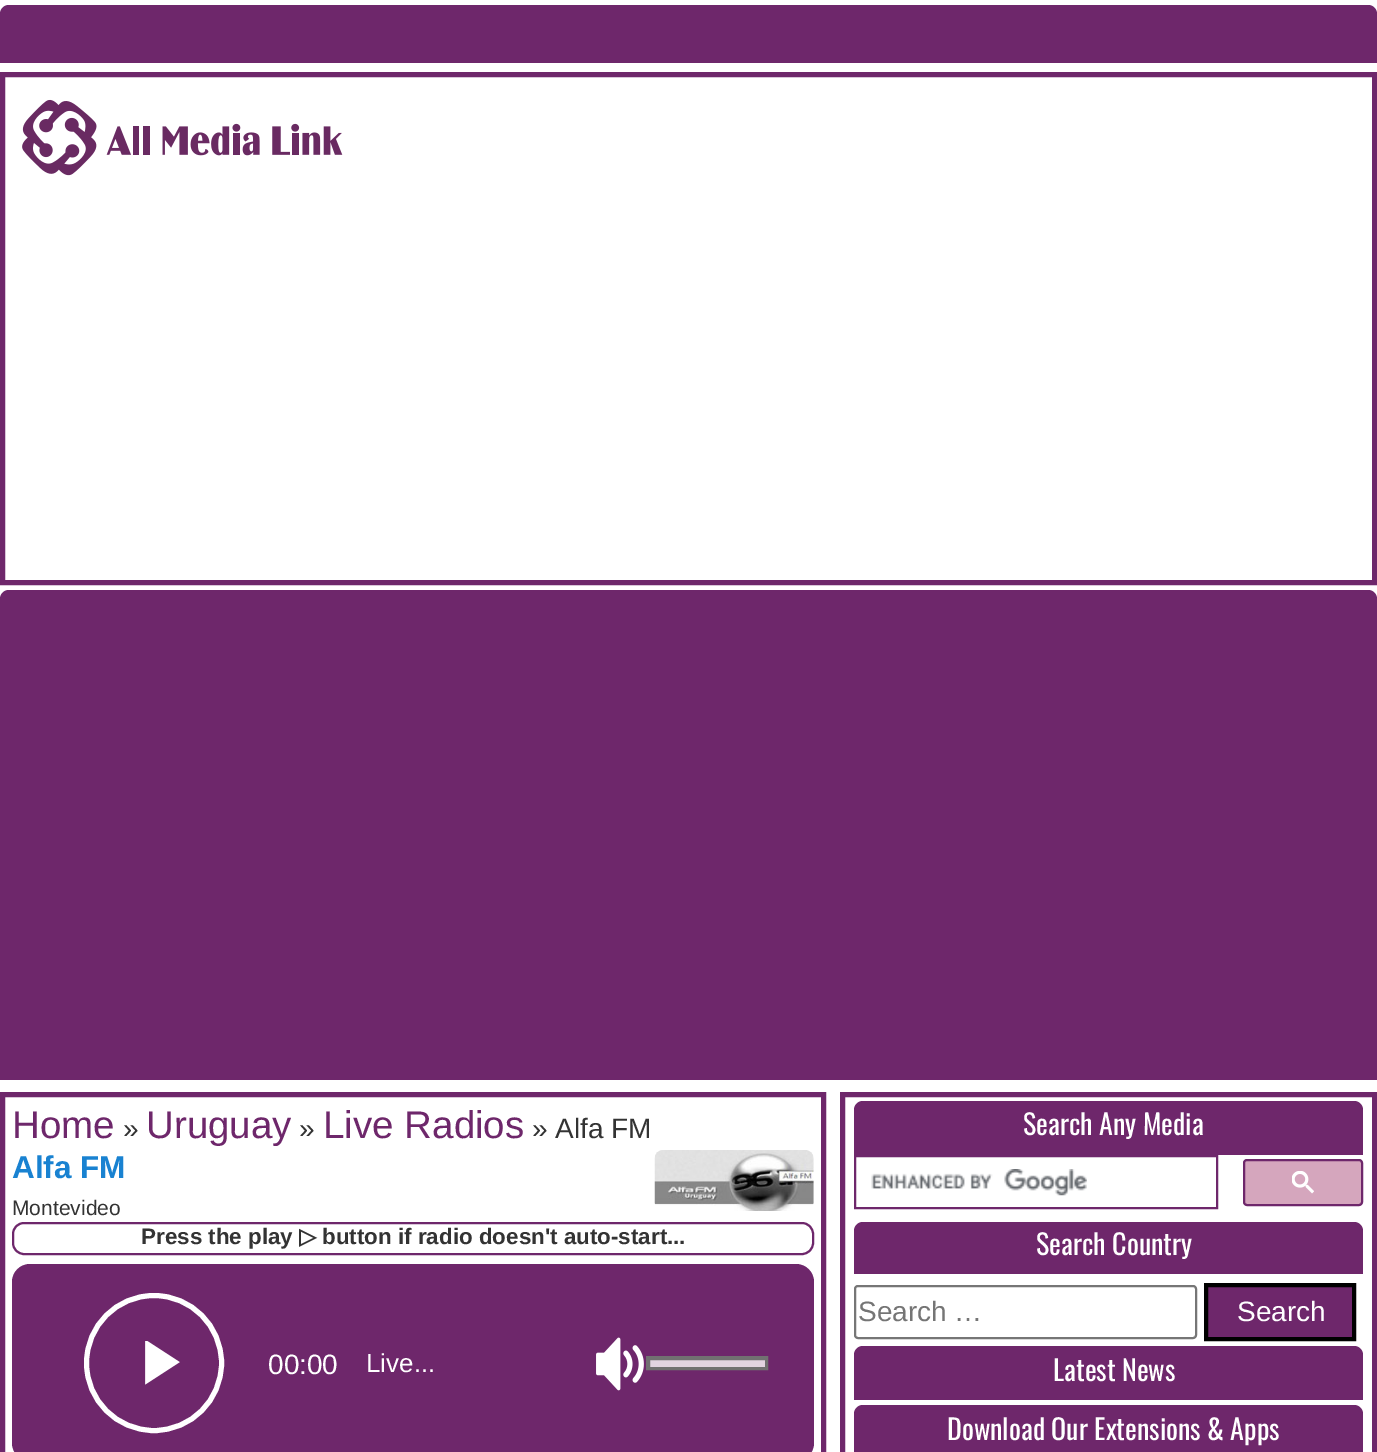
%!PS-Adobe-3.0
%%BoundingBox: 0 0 1377 1452
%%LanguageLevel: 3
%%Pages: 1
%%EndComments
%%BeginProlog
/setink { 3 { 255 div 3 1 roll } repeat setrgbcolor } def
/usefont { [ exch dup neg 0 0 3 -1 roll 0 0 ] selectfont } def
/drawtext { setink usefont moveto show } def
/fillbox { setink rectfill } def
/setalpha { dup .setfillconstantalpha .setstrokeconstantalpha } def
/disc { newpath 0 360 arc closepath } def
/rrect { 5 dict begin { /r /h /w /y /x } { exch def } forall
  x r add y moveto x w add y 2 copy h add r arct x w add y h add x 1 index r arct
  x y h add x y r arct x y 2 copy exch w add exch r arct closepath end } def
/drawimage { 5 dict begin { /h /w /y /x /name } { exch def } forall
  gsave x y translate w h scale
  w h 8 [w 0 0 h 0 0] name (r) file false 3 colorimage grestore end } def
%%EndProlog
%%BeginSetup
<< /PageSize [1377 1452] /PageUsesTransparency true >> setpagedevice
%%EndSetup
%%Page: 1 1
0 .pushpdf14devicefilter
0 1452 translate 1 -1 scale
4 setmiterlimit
0 0 1377 1452 255 255 255 fillbox
110 39 107 setink
9 5 moveto 1368 5 lineto 1373 5 1377 9 1377 14 curveto 1377 63 lineto 0 63 lineto 0 14 lineto 0 9 4 5 9 5 curveto closepath fill
5 setlinewidth
2.5 74.5 1372 508 rectstroke
(assets/img1.rgb) 22 99 321 77 drawimage
9 590 moveto 1368 590 lineto 1373 590 1377 594 1377 599 curveto 1377 1080 lineto 0 1080 lineto 0 599 lineto 0 594 4 590 9 590 curveto closepath fill
2.5 1094.5 821 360 rectstroke
(Home) 12 1138 /LiberationSans-Regular 38.5 110 39 107 drawtext
(») 123 1138 /LiberationSans-Regular 28 51 51 51 drawtext
(Uruguay) 146 1138 /LiberationSans-Regular 38.5 110 39 107 drawtext
(») 299 1138 /LiberationSans-Regular 28 51 51 51 drawtext
(Live Radios) 323 1138 /LiberationSans-Regular 38.5 110 39 107 drawtext
(» Alfa FM) 532 1138 /LiberationSans-Regular 28 51 51 51 drawtext
(Alfa FM) 12 1178 /LiberationSans-Bold 31.5 25 130 209 drawtext
(Montevideo) 12 1215 /LiberationSans-Regular 21 51 51 51 drawtext
(assets/img2.rgb) 654 1150 160 61 drawimage
110 39 107 setink
2 setlinewidth
13 1223 800 31 11 rrect stroke
(Press the play) 141 1244 /LiberationSans-Bold 22.4 51 51 51 drawtext
(▷) 299 1244 /DejaVuSans-Bold 22.4 51 51 51 drawtext
(button if radio doesn't auto-start...) 322 1244 /LiberationSans-Bold 22.4 51 51 51 drawtext
110 39 107 setink
12 1264 802 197 18 rrect fill
255 255 255 setink
5 setlinewidth
154 1363 67.5 disc stroke
(assets/img3.rgb) 145 1341 35 44 drawimage
(00:00) 268 1374 /LiberationSans-Regular 28 255 255 255 drawtext
(Live...) 366 1372 /LiberationSans-Regular 26 255 255 255 drawtext
(assets/img4.rgb) 596 1337 48 54 drawimage
113 113 113 setink
2 setlinewidth
647 1357 120 12 rectstroke
0.8 setalpha
255 255 255 setink
649 1359 moveto 766 1359 lineto 766 1368 lineto 649 1368 lineto closepath fill
1 setalpha
113 113 113 setink
649 1359 moveto 766 1359 lineto 766 1368 lineto 649 1368 lineto closepath stroke
110 39 107 setink
5 setlinewidth
842.5 1094.5 532 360 rectstroke
863 1101 moveto 1354 1101 lineto 1359 1101 1363 1105 1363 1110 curveto 1363 1155 lineto 854 1155 lineto 854 1110 lineto 854 1105 858 1101 863 1101 curveto closepath fill
(Search Any Media) 1023 1135 /Oswald-Regular 28 255 255 255 drawtext
110 39 107 setink
2 setlinewidth
855 1156 362 52 rectstroke
(assets/img5.rgb) 871 1169 216 27 drawimage
213 166 189 setink
1244 1160 118 45 3 rrect gsave fill grestore
110 39 107 setink
stroke
(assets/img6.rgb) 1292 1171 22 23 drawimage
863 1222 moveto 1354 1222 lineto 1359 1222 1363 1226 1363 1231 curveto 1363 1274 lineto 854 1274 lineto 854 1231 lineto 854 1226 858 1222 863 1222 curveto closepath fill
(Search Country) 1036 1255 /Oswald-Regular 28 255 255 255 drawtext
118 118 118 setink
855 1286 341 52 3 rrect stroke
(Search …) 858 1321 /LiberationSans-Regular 28 117 117 117 drawtext
110 39 107 setink
1206 1285 moveto 1354 1285 lineto 1354 1339 lineto 1206 1339 lineto closepath gsave fill grestore
0 0 0 setink
4 setlinewidth
stroke
(Search) 1237 1321 /LiberationSans-Regular 28 255 255 255 drawtext
110 39 107 setink
863 1346 moveto 1354 1346 lineto 1359 1346 1363 1350 1363 1355 curveto 1363 1400 lineto 854 1400 lineto 854 1355 lineto 854 1350 858 1346 863 1346 curveto closepath fill
(Latest News) 1053 1381 /Oswald-Regular 28 255 255 255 drawtext
110 39 107 setink
863 1405 moveto 1354 1405 lineto 1359 1405 1363 1409 1363 1414 curveto 1363 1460 lineto 854 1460 lineto 854 1414 lineto 854 1409 858 1405 863 1405 curveto closepath fill
(Download Our Extensions & Apps) 947 1440 /Oswald-Regular 28 255 255 255 drawtext
.poppdf14devicefilter showpage
%%EOF
